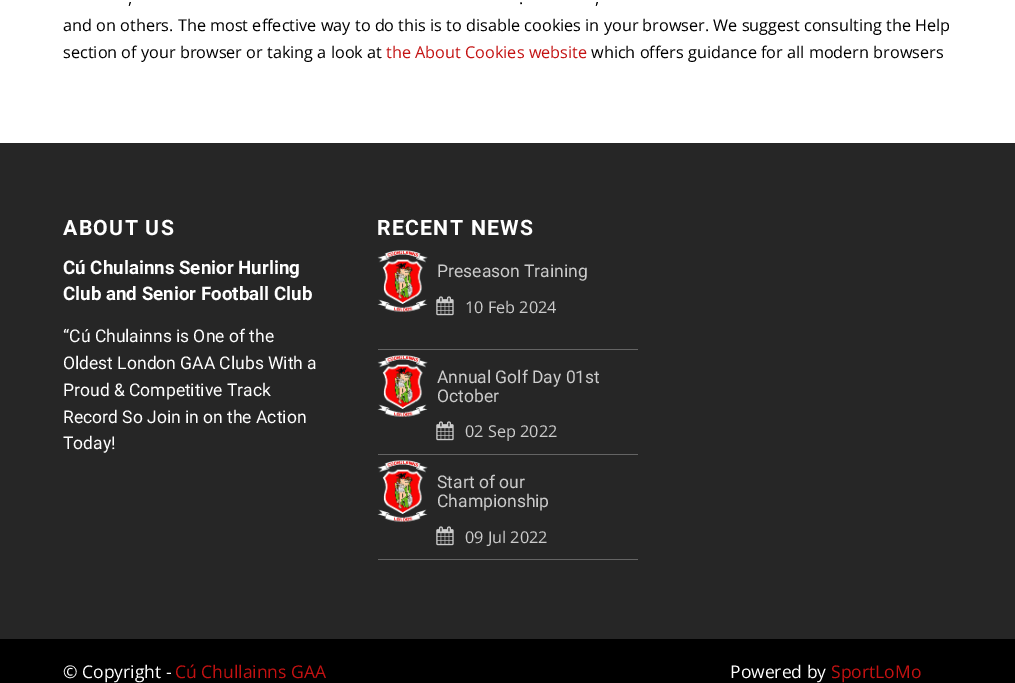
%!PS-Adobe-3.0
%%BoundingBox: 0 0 1015 683
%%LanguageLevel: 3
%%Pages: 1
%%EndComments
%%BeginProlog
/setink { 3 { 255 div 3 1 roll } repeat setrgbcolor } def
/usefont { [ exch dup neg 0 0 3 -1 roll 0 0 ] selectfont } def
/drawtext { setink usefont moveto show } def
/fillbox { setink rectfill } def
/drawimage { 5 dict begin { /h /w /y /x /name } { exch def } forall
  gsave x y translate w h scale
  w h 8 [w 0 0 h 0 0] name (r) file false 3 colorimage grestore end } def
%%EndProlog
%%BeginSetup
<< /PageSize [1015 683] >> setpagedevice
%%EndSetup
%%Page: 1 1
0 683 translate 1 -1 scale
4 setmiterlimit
0 0 1015 683 255 255 255 fillbox
(,) 128 4 /OpenSans-Regular 16.25 0 0 0 drawtext
(.) 519 4 /OpenSans-Regular 16.25 0 0 0 drawtext
(,) 595 4 /OpenSans-Regular 16.25 0 0 0 drawtext
(and on others. The most effective way to do this is to disable cookies in your browser. We suggest consulting the Help) 63 31 /OpenSans-Regular 16.25 0 0 0 drawtext
(section of your browser or taking a look at) 63 58 /OpenSans-Regular 16.25 0 0 0 drawtext
(the About Cookies website) 386 58 /OpenSans-Regular 16.25 196 18 18 drawtext
(which offers guidance for all modern browsers) 591 58 /OpenSans-Regular 16.25 0 0 0 drawtext
0 143 1015 496 38 38 38 fillbox
/Roboto-Bold 21.25 usefont
255 255 255 setink
63 235 moveto 1.25 0 (ABOUT US) ashow
(Cú Chulainns Senior Hurling) 63 274 /Roboto-Bold 18.75 255 255 255 drawtext
(Club and Senior Football Club) 63 300 /Roboto-Bold 18.75 255 255 255 drawtext
(“Cú Chulainns is One of the) 63 342 /Roboto-Regular 17.5 255 255 255 drawtext
(Oldest London GAA Clubs With a) 63 369 /Roboto-Regular 17.5 255 255 255 drawtext
(Proud & Competitive Track) 63 396 /Roboto-Regular 17.5 255 255 255 drawtext
(Record So Join in on the Action) 63 423 /Roboto-Regular 17.5 255 255 255 drawtext
(Today!) 63 449 /Roboto-Regular 17.5 255 255 255 drawtext
/Roboto-Bold 21.25 usefont
377 235 moveto 1.25 0 (RECENT NEWS) ashow
378 349 260 1 100 100 100 fillbox
(assets/img1.rgb) 377 250 51 62 drawimage
(Preseason Training) 437 277 /Roboto-Regular 17.5 204 204 204 drawtext
(assets/img2.rgb) 436 296 18 20 drawimage
(10 Feb 2024) 465 313 /OpenSans-Regular 16.25 204 204 204 drawtext
378 454 260 1 100 100 100 fillbox
(assets/img1.rgb) 377 355 51 62 drawimage
(Annual Golf Day 01st) 437 383 /Roboto-Regular 17.5 204 204 204 drawtext
(October) 437 402 /Roboto-Regular 17.5 204 204 204 drawtext
(assets/img2.rgb) 436 421 18 20 drawimage
(02 Sep 2022) 465 437 /OpenSans-Regular 16.25 204 204 204 drawtext
378 559 260 1 100 100 100 fillbox
(assets/img1.rgb) 377 460 51 62 drawimage
(Start of our) 437 488 /Roboto-Regular 17.5 204 204 204 drawtext
(Championship) 437 507 /Roboto-Regular 17.5 204 204 204 drawtext
(assets/img2.rgb) 436 526 18 20 drawimage
(09 Jul 2022) 465 543 /OpenSans-Regular 16.25 204 204 204 drawtext
0 639 1015 44 0 0 0 fillbox
(© Copyright -) 63 678 /OpenSans-Regular 17.5 255 255 255 drawtext
(Cú Chullainns GAA) 175 678 /OpenSans-Regular 17.5 196 18 18 drawtext
(Powered by) 730 678 /OpenSans-Regular 17.5 255 255 255 drawtext
(SportLoMo) 831 678 /OpenSans-Regular 17.5 196 18 18 drawtext
showpage
%%EOF
